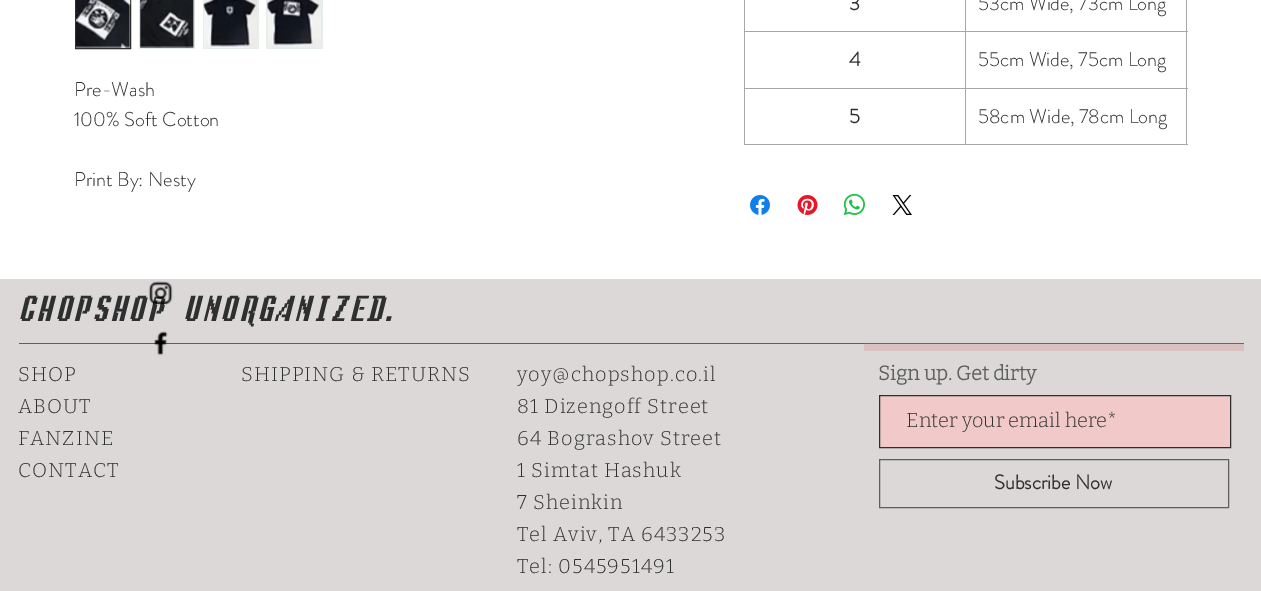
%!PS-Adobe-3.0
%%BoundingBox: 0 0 1261 591
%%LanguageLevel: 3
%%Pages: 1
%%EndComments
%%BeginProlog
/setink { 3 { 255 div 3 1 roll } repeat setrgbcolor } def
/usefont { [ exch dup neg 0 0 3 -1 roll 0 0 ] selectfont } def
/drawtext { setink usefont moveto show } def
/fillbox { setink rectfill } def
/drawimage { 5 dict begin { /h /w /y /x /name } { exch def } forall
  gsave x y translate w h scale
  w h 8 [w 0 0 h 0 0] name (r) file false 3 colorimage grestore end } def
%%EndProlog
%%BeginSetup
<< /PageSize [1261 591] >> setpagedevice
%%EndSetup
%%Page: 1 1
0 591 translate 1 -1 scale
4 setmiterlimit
0 0 1261 591 255 255 255 fillbox
231 238 234 setink
75.5 -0.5 moveto 130.5 -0.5 lineto 130.5 48.5 lineto 75.5 48.5 lineto closepath gsave fill grestore
46 48 47 setink
stroke
(assets/img1.rgb) 76 0 55 48 drawimage
139 0 56 49 231 238 234 fillbox
(assets/img2.rgb) 139 0 56 48 drawimage
203 0 56 49 231 238 234 fillbox
(assets/img3.rgb) 203 0 54 48 drawimage
266 0 57 49 231 238 234 fillbox
(assets/img4.rgb) 267 0 54 48 drawimage
(Pre-Wash) 74 96 /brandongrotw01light-Light 20 46 48 47 drawtext
(100% Soft Cotton) 74 126 /brandongrotw01light-Light 20 46 48 47 drawtext
(Print By: Nesty) 74 186 /brandongrotw01light-Light 20 46 48 47 drawtext
(3) 849 10 /brandongrotw01light-Bold 20 46 48 47 drawtext
965 31 223 1 167 168 167 fillbox
965 88 223 1 167 168 167 fillbox
1186 88 1 57 167 168 167 fillbox
965 144 223 1 167 168 167 fillbox
965 88 1 57 167 168 167 fillbox
744 88 222 1 167 168 167 fillbox
965 31 1 58 167 168 167 fillbox
744 31 222 1 167 168 167 fillbox
965 0 1 33 167 168 167 fillbox
(53cm Wide, 73cm Long) 978 10 /brandongrotw01light-Light 20 46 48 47 drawtext
744 144 222 1 167 168 167 fillbox
744 88 1 57 167 168 167 fillbox
744 0 1 89 167 168 167 fillbox
(4) 849 66 /brandongrotw01light-Bold 20 46 48 47 drawtext
1186 0 1 89 167 168 167 fillbox
(55cm Wide, 75cm Long) 978 66 /brandongrotw01light-Light 20 46 48 47 drawtext
(5) 849 123 /brandongrotw01light-Bold 20 46 48 47 drawtext
(58cm Wide, 78cm Long) 978 123 /brandongrotw01light-Light 20 46 48 47 drawtext
(assets/img5.rgb) 750 195 20 20 drawimage
(assets/img6.rgb) 797 195 21 20 drawimage
(assets/img7.rgb) 843 193 22 22 drawimage
(assets/img8.rgb) 892 195 20 20 drawimage
0 279 1261 312 220 216 216 fillbox
/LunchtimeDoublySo-BoldItalic 30 usefont
46 48 47 setink
18 321 moveto 1.5 0 (CHOPSHOP UNORGANIZED.) ashow
(assets/img9.rgb) 148 281 25 24 drawimage
19 343 845 1 92 95 94 fillbox
(assets/img10.rgb) 154 331 14 25 drawimage
864 344 380 7 216 193 191 fillbox
864 343 380 1 115 98 95 fillbox
/Bitter-Thin 20 usefont
46 48 47 setink
18 381 moveto 1 0 (SHOP) ashow
18 413 moveto 1 0 (ABOUT) ashow
18 445 moveto 1 0 (FANZINE) ashow
18 477 moveto 1 0 (CONTACT) ashow
241 381 moveto 1 0 (SHIPPING & RETURNS) ashow
517 381 moveto 1 0 (yoy@chopshop.co.il) ashow
517 413 moveto 1 0 (81 Dizengoff Street) ashow
517 445 moveto 1 0 (64 Bograshov Street) ashow
517 477 moveto 1 0 (1 Simtat Hashuk) ashow
517 509 moveto 1 0 (7 Sheinkin) ashow
517 541 moveto 1 0 (Tel Aviv, TA 6433253) ashow
517 573 moveto 1 0 (Tel: 0545951491) ashow
(Sign up. Get dirty) 878 380 /Bitter-Bold 20 92 95 94 drawtext
242 201 201 setink
879.5 395.5 moveto 1230.5 395.5 lineto 1230.5 447.5 lineto 879.5 447.5 lineto closepath gsave fill grestore
46 48 47 setink
stroke
(Enter your email here*) 906 427 /Bitter-Thin 20 46 48 47 drawtext
92 95 94 setink
879.5 459.5 349 48 rectstroke
(Subscribe Now) 994 489 /brandongrotw01light-Bold 20 46 48 47 drawtext
showpage
%%EOF
